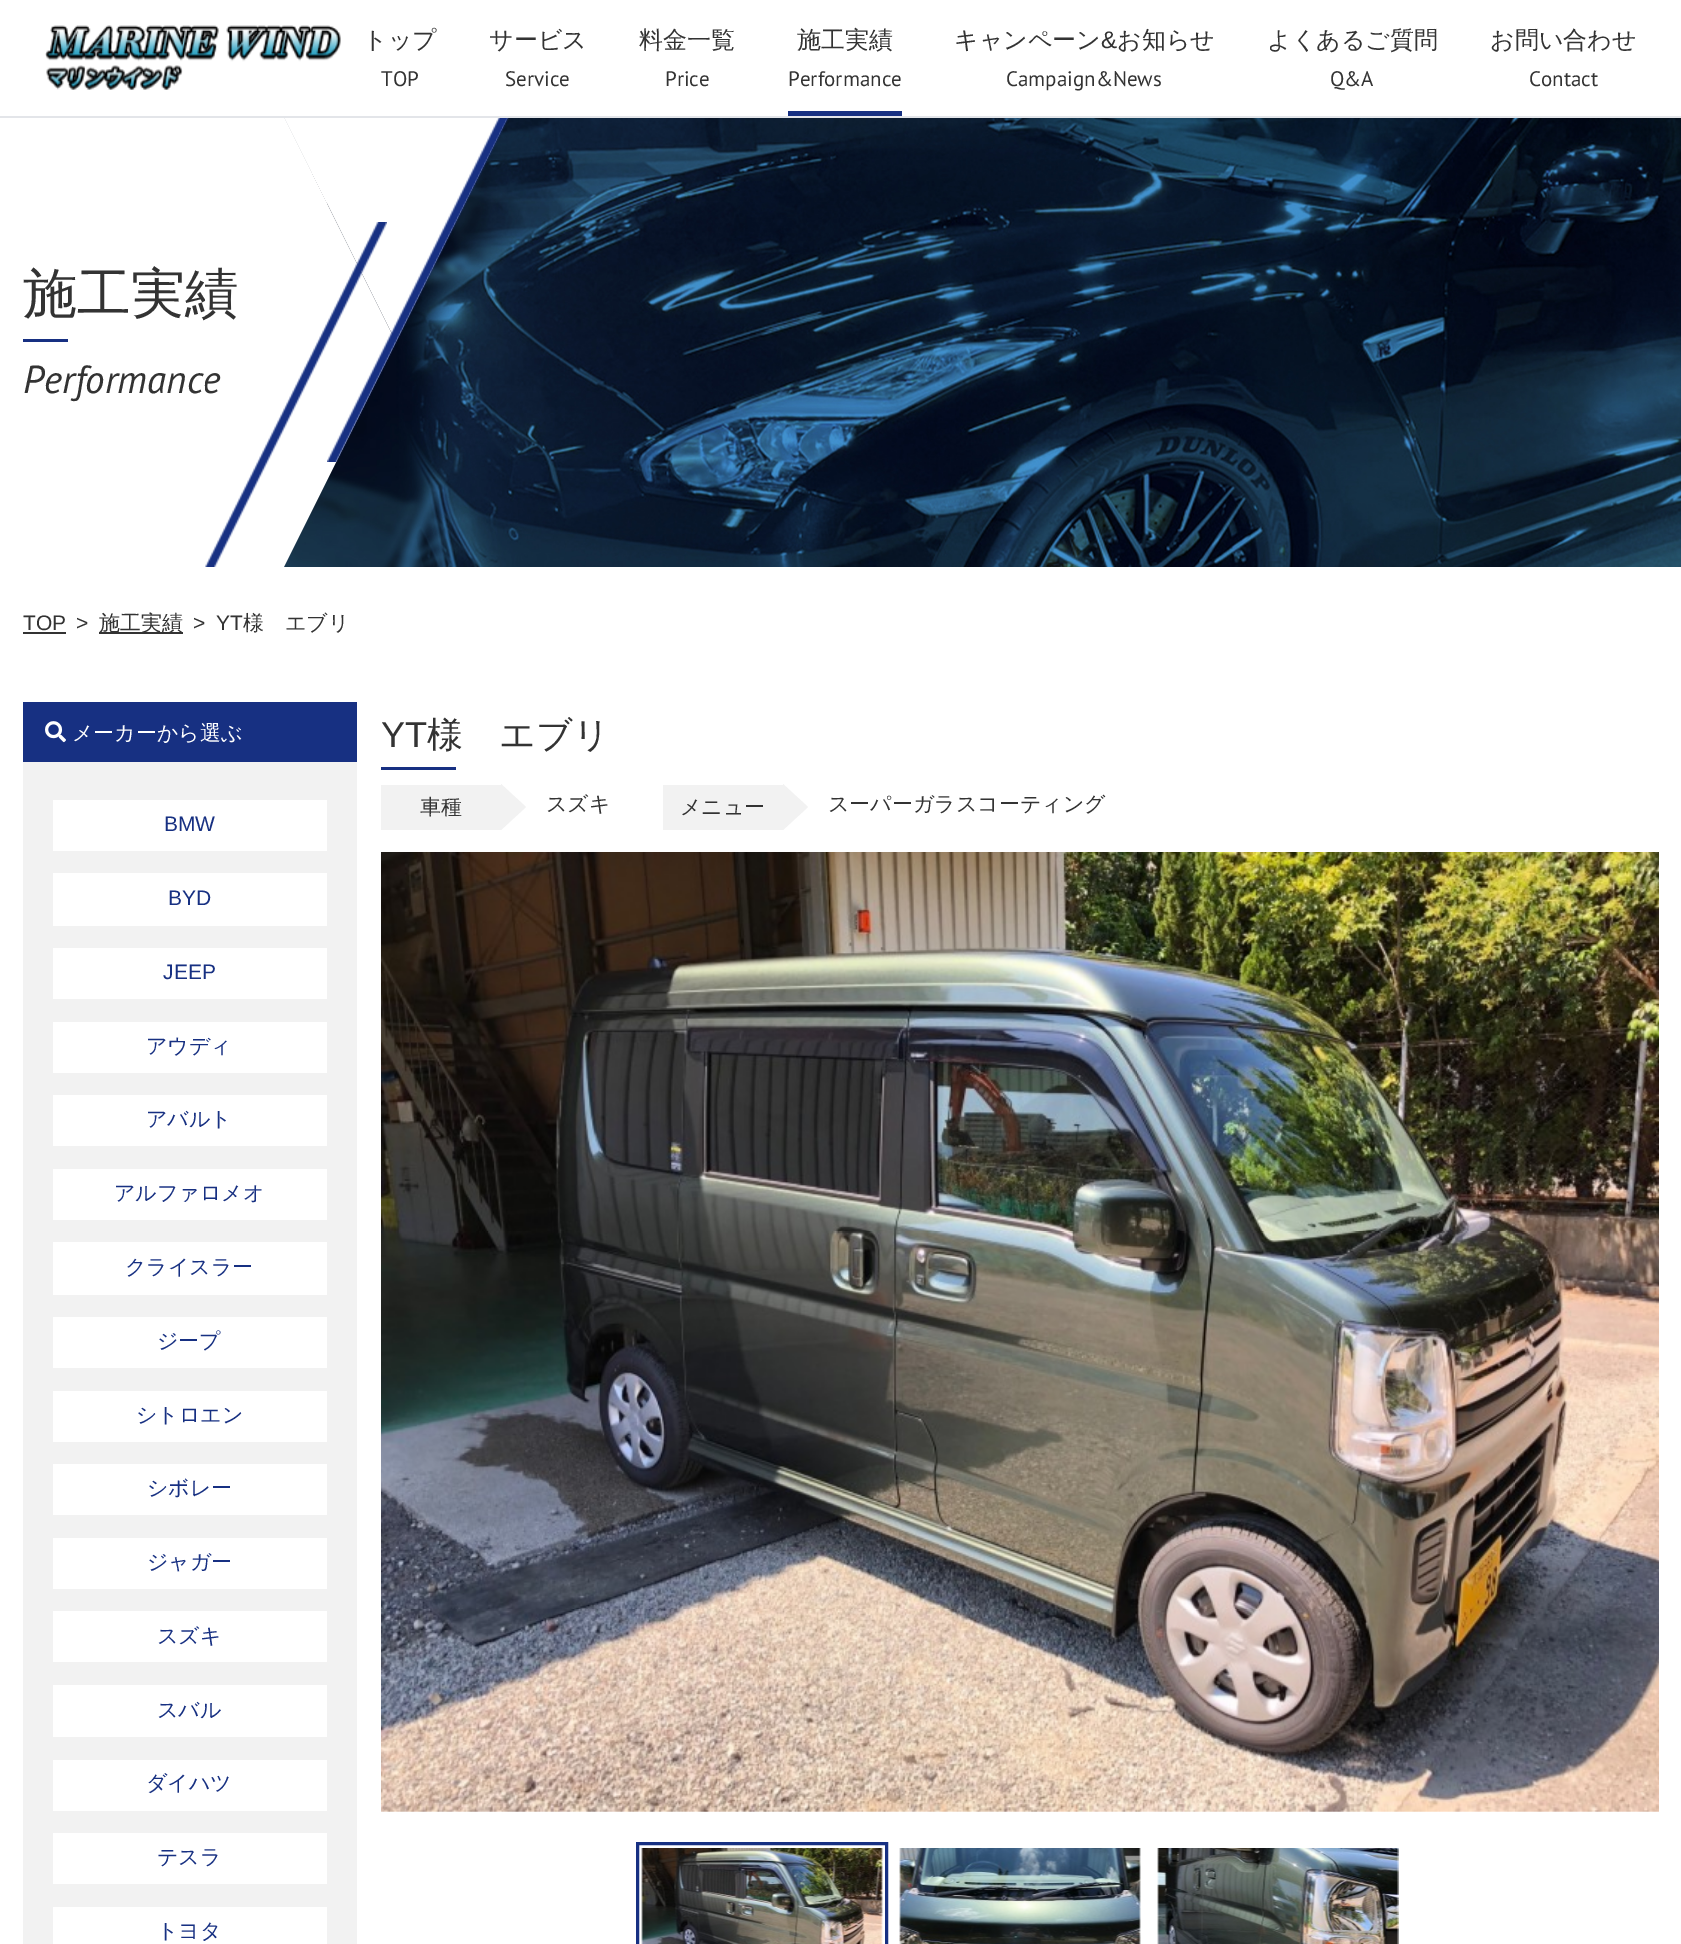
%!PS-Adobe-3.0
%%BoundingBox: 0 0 1681 1944
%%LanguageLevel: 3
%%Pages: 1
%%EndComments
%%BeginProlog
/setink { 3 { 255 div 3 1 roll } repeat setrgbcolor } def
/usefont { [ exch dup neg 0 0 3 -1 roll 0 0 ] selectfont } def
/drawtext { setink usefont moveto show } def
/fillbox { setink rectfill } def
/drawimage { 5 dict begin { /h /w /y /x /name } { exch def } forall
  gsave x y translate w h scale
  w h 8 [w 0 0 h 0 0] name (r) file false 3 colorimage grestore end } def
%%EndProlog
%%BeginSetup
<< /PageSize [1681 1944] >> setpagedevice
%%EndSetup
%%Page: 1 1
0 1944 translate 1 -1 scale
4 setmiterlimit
0 0 1681 1944 255 255 255 fillbox
(assets/img2.rgb) 284 118 1397 449 drawimage
284 117 moveto 508 117 lineto 396 342 lineto closepath fill
284 567 moveto 284 117 lineto 396 342 lineto closepath fill
0 116 1681 2 227 229 233 fillbox
(assets/img1.rgb) 45 25 296 65 drawimage
(トップ) 363 48 /WenQuanYiZenHei-Medium 24 51 51 51 drawtext
(TOP) 381 86 /PTSans-Regular 21 51 51 51 drawtext
(サービス) 489 48 /WenQuanYiZenHei-Medium 24 51 51 51 drawtext
(Service) 505 86 /PTSans-Regular 21 51 51 51 drawtext
(料金一覧) 639 48 /WenQuanYiZenHei-Medium 24 51 51 51 drawtext
(Price) 665 86 /PTSans-Regular 21 51 51 51 drawtext
(施工実績) 797 48 /WenQuanYiZenHei-Medium 24 51 51 51 drawtext
(Performance) 788 86 /PTSans-Regular 21 51 51 51 drawtext
788 111 114 5 23 48 130 fillbox
(キャンペーン) 954 48 /WenQuanYiZenHei-Medium 24 51 51 51 drawtext
(&) 1101 48 /LiberationSans-Regular 24 51 51 51 drawtext
(お知らせ) 1117 48 /WenQuanYiZenHei-Medium 24 51 51 51 drawtext
(Campaign&News) 1006 86 /PTSans-Regular 21 51 51 51 drawtext
(よくあるご質問) 1267 48 /WenQuanYiZenHei-Medium 24 51 51 51 drawtext
(Q&A) 1330 86 /PTSans-Regular 21 51 51 51 drawtext
(お問い合わせ) 1490 48 /WenQuanYiZenHei-Medium 24 51 51 51 drawtext
(Contact) 1529 86 /PTSans-Regular 21 51 51 51 drawtext
(施工実績) 23 312 /WenQuanYiZenHei-Medium 54 51 51 51 drawtext
23 339 45 3 23 48 130 fillbox
(assets/img4.rgb) 327 118 182 344 drawimage
(Performance) 23 393 /PTSans-Italic 39 51 51 51 drawtext
(assets/img3.rgb) 205 222 182 345 drawimage
(TOP) 23 630 /LiberationSans-Regular 21 51 51 51 drawtext
23 632 43 2 51 51 51 fillbox
(>) 76 630 /LiberationSans-Regular 21 51 51 51 drawtext
99 632 84 2 51 51 51 fillbox
(施工実績) 99 630 /WenQuanYiZenHei-Medium 21 51 51 51 drawtext
(>) 193 630 /LiberationSans-Regular 21 51 51 51 drawtext
(YT) 216 630 /LiberationSans-Regular 21 51 51 51 drawtext
(様　エブリ) 243 630 /WenQuanYiZenHei-Medium 21 51 51 51 drawtext
23 762 334 1182 242 242 242 fillbox
23 702 334 60 23 48 130 fillbox
(assets/img5.rgb) 45 721 21 22 drawimage
(メーカーから選ぶ) 72 740 /WenQuanYiZenHei-Medium 21 255 255 255 drawtext
53 800 274 51 255 255 255 fillbox
(BMW) 164 831 /LiberationSans-Regular 21 23 48 130 drawtext
53 873 274 53 255 255 255 fillbox
(BYD) 168 905 /LiberationSans-Regular 21 23 48 130 drawtext
53 948 274 51 255 255 255 fillbox
(JEEP) 163 979 /LiberationSans-Regular 21 23 48 130 drawtext
53 1022 274 51 255 255 255 fillbox
(アウディ) 146 1053 /WenQuanYiZenHei-Medium 21 23 48 130 drawtext
53 1095 274 51 255 255 255 fillbox
(アバルト) 146 1126 /WenQuanYiZenHei-Medium 21 23 48 130 drawtext
53 1169 274 51 255 255 255 fillbox
(アルファロメオ) 114 1200 /WenQuanYiZenHei-Medium 21 23 48 130 drawtext
53 1242 274 53 255 255 255 fillbox
(クライスラー) 125 1274 /WenQuanYiZenHei-Medium 21 23 48 130 drawtext
53 1317 274 51 255 255 255 fillbox
(ジープ) 157 1348 /WenQuanYiZenHei-Medium 21 23 48 130 drawtext
53 1391 274 51 255 255 255 fillbox
(シトロエン) 136 1422 /WenQuanYiZenHei-Medium 21 23 48 130 drawtext
53 1464 274 51 255 255 255 fillbox
(シボレー) 147 1495 /WenQuanYiZenHei-Medium 21 23 48 130 drawtext
53 1538 274 51 255 255 255 fillbox
(ジャガー) 147 1569 /WenQuanYiZenHei-Medium 21 23 48 130 drawtext
53 1611 274 51 255 255 255 fillbox
(スズキ) 157 1643 /WenQuanYiZenHei-Medium 21 23 48 130 drawtext
53 1685 274 52 255 255 255 fillbox
(スバル) 157 1717 /WenQuanYiZenHei-Medium 21 23 48 130 drawtext
53 1760 274 51 255 255 255 fillbox
(ダイハツ) 146 1790 /WenQuanYiZenHei-Medium 21 23 48 130 drawtext
53 1833 274 51 255 255 255 fillbox
(テスラ) 157 1864 /WenQuanYiZenHei-Medium 21 23 48 130 drawtext
53 1907 274 37 255 255 255 fillbox
(トヨタ) 157 1938 /WenQuanYiZenHei-Medium 21 23 48 130 drawtext
(YT) 381 747 /LiberationSans-Regular 36 51 51 51 drawtext
(様　エブリ) 427 747 /WenQuanYiZenHei-Medium 36 51 51 51 drawtext
381 767 75 3 23 48 130 fillbox
381 785 120 45 242 242 242 fillbox
(車種) 420 814 /WenQuanYiZenHei-Medium 21 51 51 51 drawtext
242 242 242 setink
501 830 moveto 501 784 lineto 526 807 lineto closepath fill
(スズキ) 546 811 /WenQuanYiZenHei-Medium 21 51 51 51 drawtext
663 785 120 45 242 242 242 fillbox
(メニュー) 680 814 /WenQuanYiZenHei-Medium 21 51 51 51 drawtext
242 242 242 setink
783 830 moveto 783 784 lineto 808 807 lineto closepath fill
(スーパーガラスコーティング) 828 811 /WenQuanYiZenHei-Medium 21 51 51 51 drawtext
(assets/img6.rgb) 381 852 1278 960 drawimage
23 48 130 setink
3 setlinewidth
637.5 1843.5 249 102 rectstroke
(assets/img7.rgb) 641 1848 242 96 drawimage
(assets/img8.rgb) 899 1848 242 96 drawimage
(assets/img9.rgb) 1157 1848 242 96 drawimage
showpage
%%EOF
